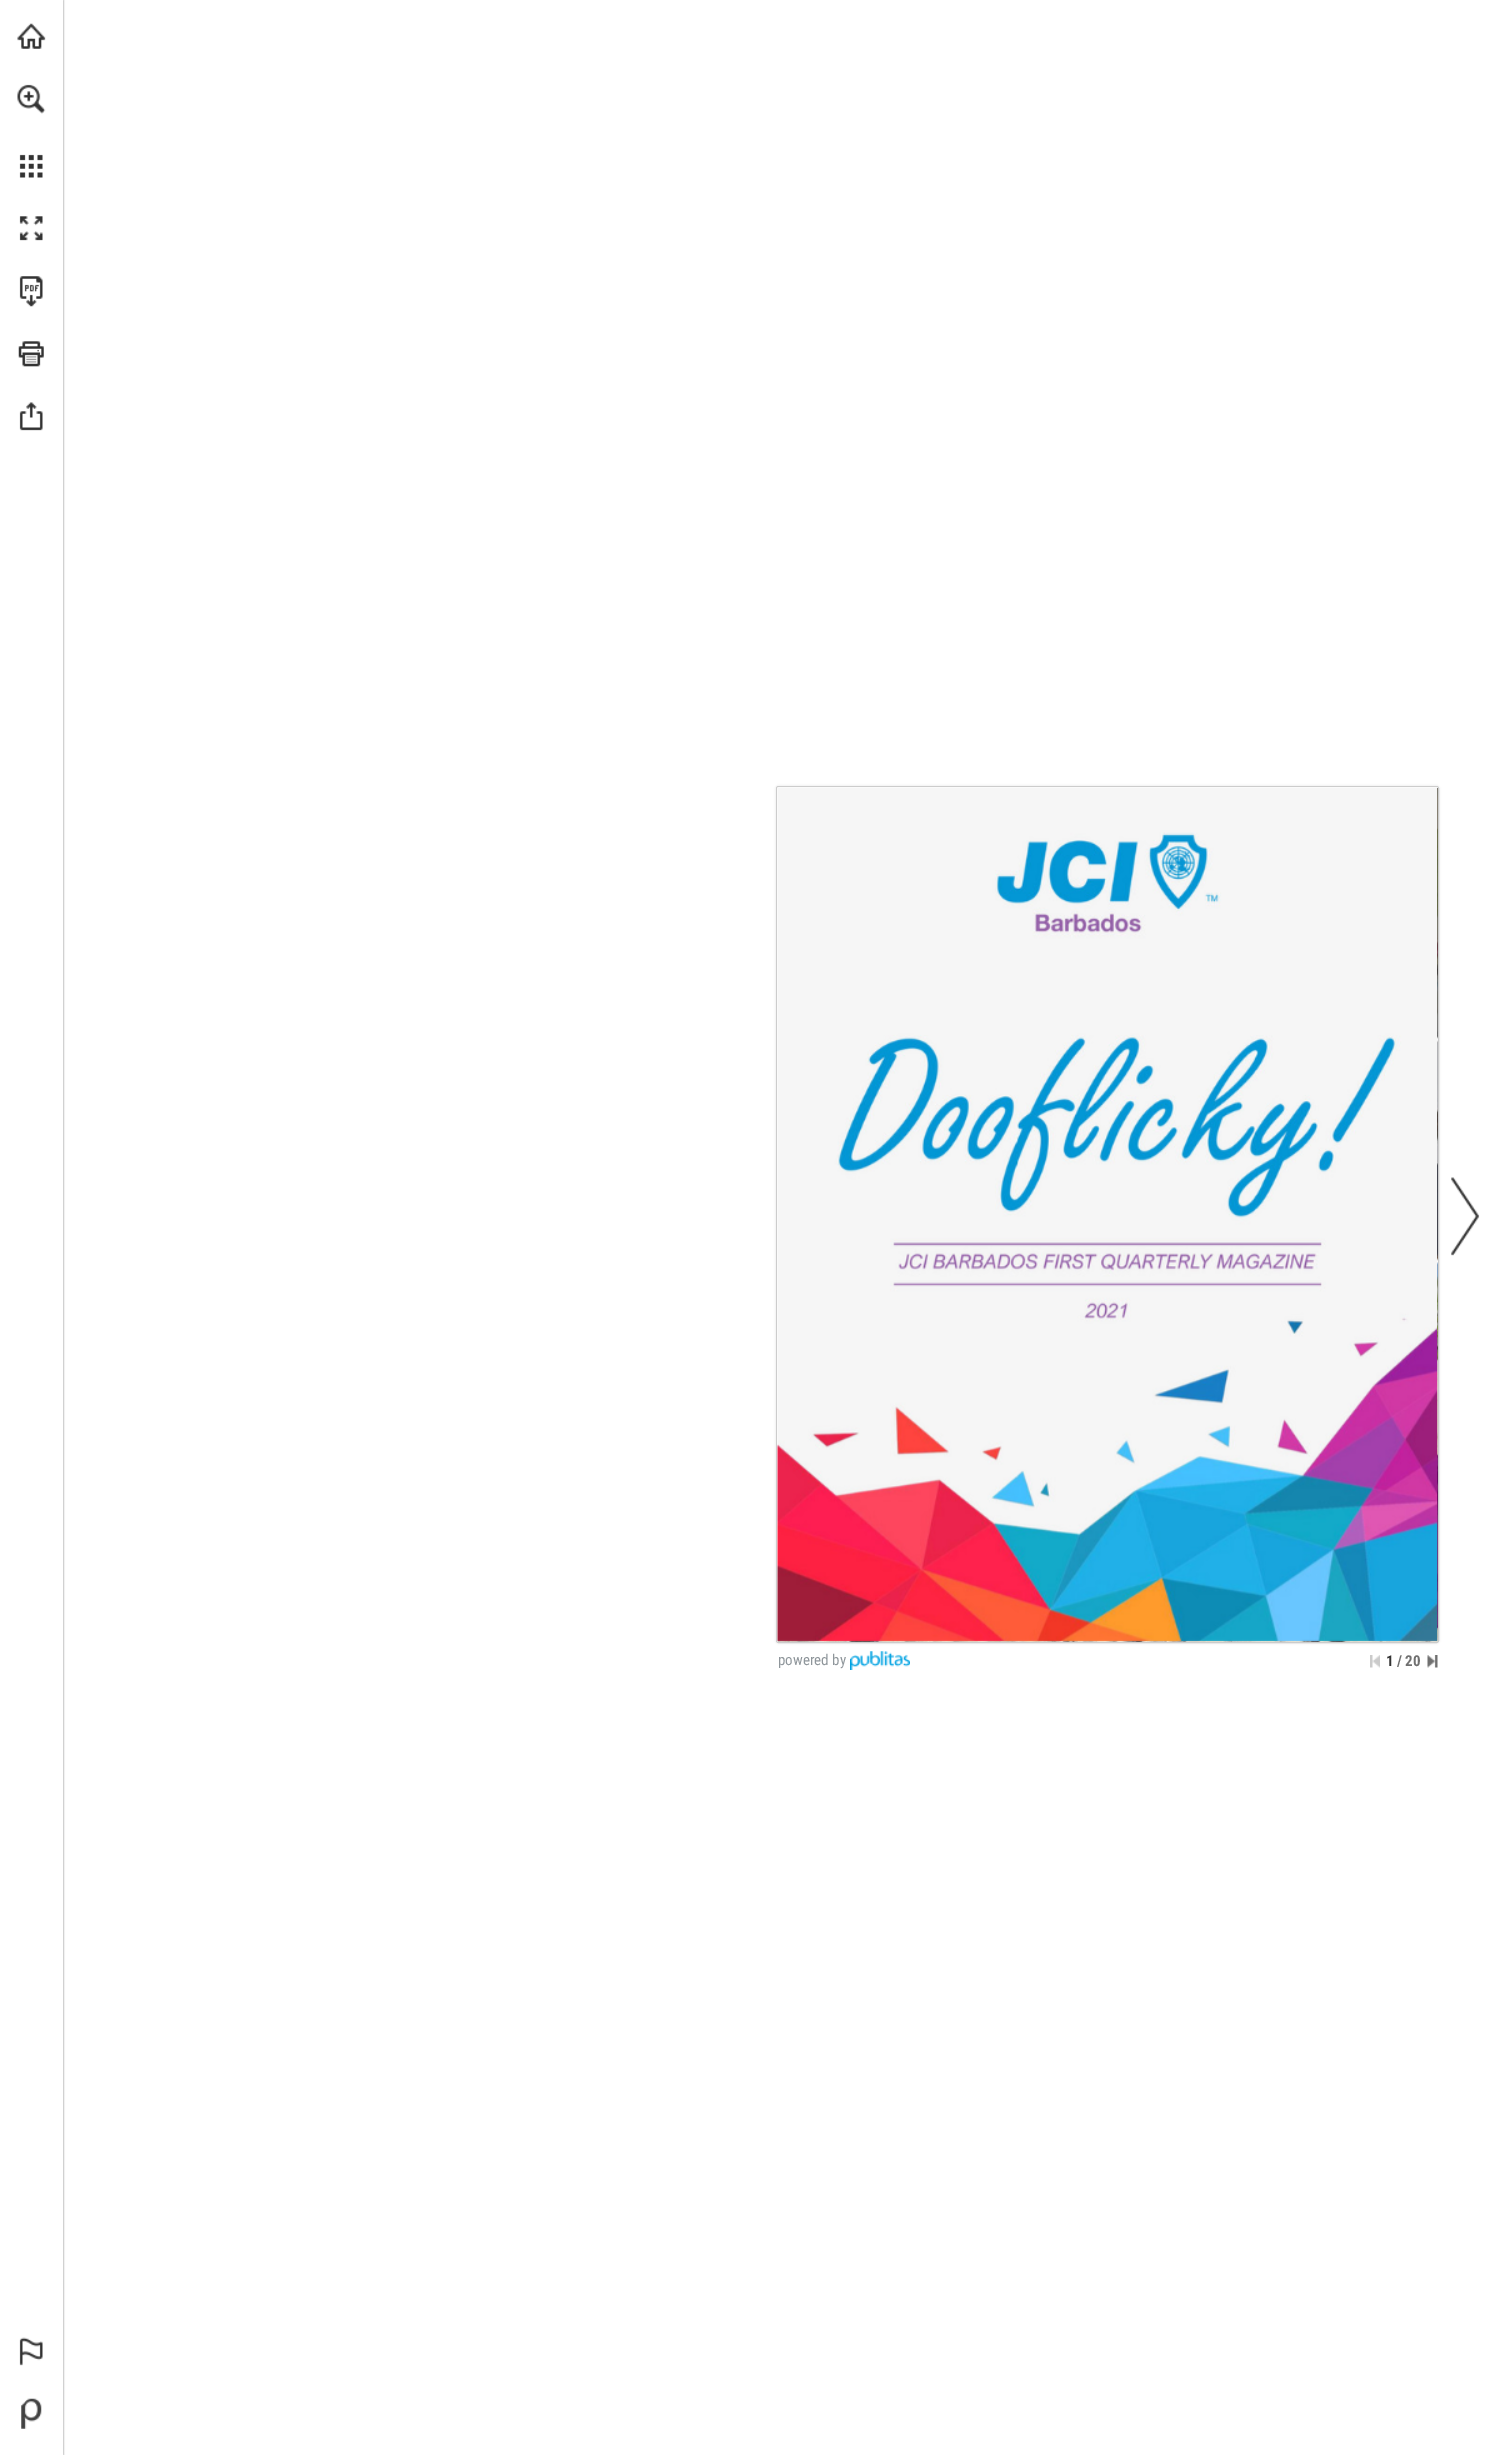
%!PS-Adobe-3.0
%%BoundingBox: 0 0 1492 2455
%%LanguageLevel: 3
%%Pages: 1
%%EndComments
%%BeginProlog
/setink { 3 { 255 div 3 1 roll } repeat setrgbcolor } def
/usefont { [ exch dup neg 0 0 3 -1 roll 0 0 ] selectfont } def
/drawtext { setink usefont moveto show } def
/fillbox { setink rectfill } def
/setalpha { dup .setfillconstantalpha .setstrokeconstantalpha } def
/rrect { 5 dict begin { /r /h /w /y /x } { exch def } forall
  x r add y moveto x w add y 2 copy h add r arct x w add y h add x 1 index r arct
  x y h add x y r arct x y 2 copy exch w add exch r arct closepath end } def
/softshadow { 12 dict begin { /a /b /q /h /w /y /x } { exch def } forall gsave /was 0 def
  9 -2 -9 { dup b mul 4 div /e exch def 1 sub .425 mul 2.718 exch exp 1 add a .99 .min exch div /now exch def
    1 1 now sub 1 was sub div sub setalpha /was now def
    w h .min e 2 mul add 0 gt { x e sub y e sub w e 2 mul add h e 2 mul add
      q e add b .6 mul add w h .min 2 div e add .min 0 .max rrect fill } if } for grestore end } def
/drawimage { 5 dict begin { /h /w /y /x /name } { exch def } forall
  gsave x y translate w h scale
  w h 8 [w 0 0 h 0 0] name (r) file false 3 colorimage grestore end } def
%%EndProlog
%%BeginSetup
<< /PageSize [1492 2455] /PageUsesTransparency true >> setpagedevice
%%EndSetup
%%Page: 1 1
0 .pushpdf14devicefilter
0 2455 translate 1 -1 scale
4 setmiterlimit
0 0 1492 2455 255 255 255 fillbox
0 0 0 setink
1 0 63 2455 0 0.5 0.2 softshadow
0 0 63 2455 255 255 255 fillbox
(assets/img1.rgb) 17 23 29 26 drawimage
(assets/img2.rgb) 17 84 29 30 drawimage
(assets/img3.rgb) 19 154 24 24 drawimage
(assets/img4.rgb) 19 216 24 25 drawimage
(assets/img5.rgb) 19 276 24 31 drawimage
(assets/img6.rgb) 18 341 26 26 drawimage
(assets/img7.rgb) 19 402 24 29 drawimage
(assets/img8.rgb) 19 2337 24 29 drawimage
(assets/img9.rgb) 21 2398 21 31 drawimage
18 18 18 setink
775 785 665 859 4 1 0.05 softshadow
255 255 255 setink
776.5 786.5 662 856 2 rrect gsave fill grestore
204 204 204 setink
stroke
(assets/img11.rgb) 778 788 660 854 drawimage
(assets/img10.rgb) 777 787 661 855 drawimage
(assets/img12.rgb) 850 1651 60 19 drawimage
(powered by) 778 1665 /RobotoCondensed-Regular 15 143 150 155 drawtext
(assets/img13.rgb) 1451 1177 29 79 drawimage
(assets/img14.rgb) 1370 1655 10 13 drawimage
(1) 1386 1666 /RobotoCondensed-Bold 15 51 51 51 drawtext
(/ 20) 1397 1666 /RobotoCondensed-Bold 15 112 112 112 drawtext
(assets/img15.rgb) 1427 1655 11 13 drawimage
.poppdf14devicefilter showpage
%%EOF
